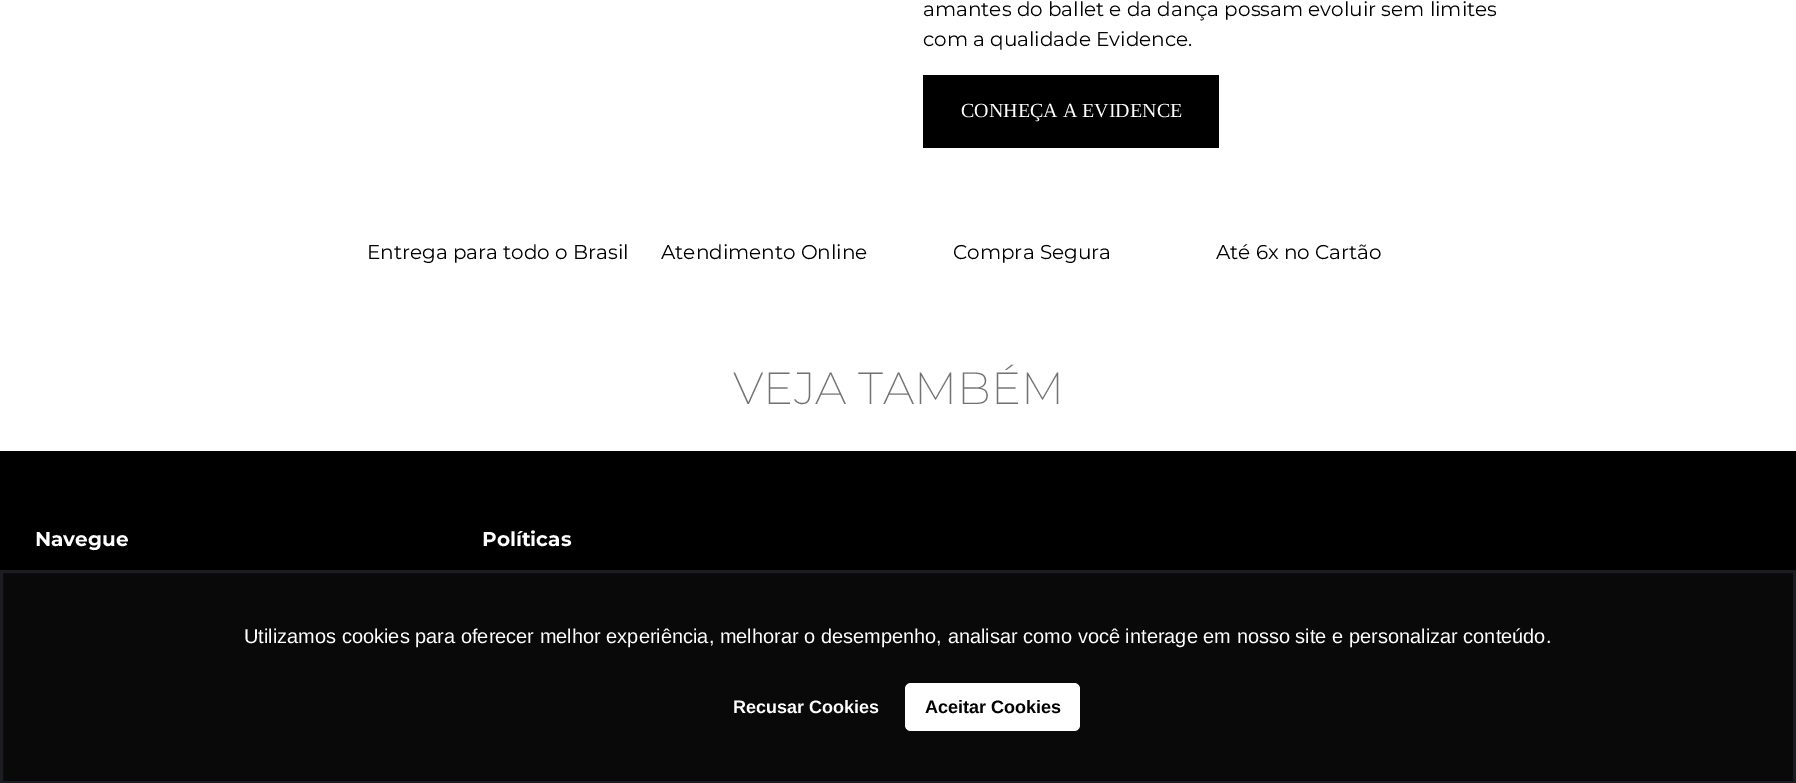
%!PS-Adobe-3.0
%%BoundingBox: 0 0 1796 783
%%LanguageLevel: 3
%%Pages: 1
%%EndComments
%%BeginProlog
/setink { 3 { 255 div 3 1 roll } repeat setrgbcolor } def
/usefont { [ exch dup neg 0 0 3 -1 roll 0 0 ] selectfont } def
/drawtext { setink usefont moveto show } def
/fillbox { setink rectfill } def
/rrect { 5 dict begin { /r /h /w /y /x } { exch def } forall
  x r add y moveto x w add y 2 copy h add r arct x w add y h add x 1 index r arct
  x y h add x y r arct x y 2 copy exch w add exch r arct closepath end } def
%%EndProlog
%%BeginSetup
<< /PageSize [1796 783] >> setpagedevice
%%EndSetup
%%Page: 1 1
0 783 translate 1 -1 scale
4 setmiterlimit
0 0 1796 783 255 255 255 fillbox
(amantes do ballet e da dança possam evoluir sem limites) 923 16 /Montserrat-Regular 20 0 0 0 drawtext
(com a qualidade Evidence.) 923 46 /Montserrat-Regular 20 0 0 0 drawtext
923 75 296 73 0 0 0 fillbox
(CONHEÇA A EVIDENCE) 961 117 /LiberationSerif-Regular 20 255 255 255 drawtext
(Entrega para todo o Brasil) 367 259 /Montserrat-Regular 20 0 0 0 drawtext
(Atendimento Online) 661 259 /Montserrat-Regular 20 0 0 0 drawtext
(Compra Segura) 953 259 /Montserrat-Regular 20 0 0 0 drawtext
(Até 6x no Cartão) 1216 259 /Montserrat-Regular 20 0 0 0 drawtext
(VEJA TAMBÉM) 733 404 /Montserrat-ExtraLight 45 114 114 115 drawtext
0 451 1796 119 0 0 0 fillbox
(Navegue) 35 546 /Montserrat-Bold 20 255 255 255 drawtext
(Políticas) 482 546 /Montserrat-Bold 20 255 255 255 drawtext
9 9 9 setink
1.5 571.5 moveto 1794.5 571.5 lineto 1794.5 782.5 lineto 1.5 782.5 lineto closepath gsave fill grestore
27 29 32 setink
3 setlinewidth
stroke
(Utilizamos cookies para oferecer melhor experiência, melhorar o desempenho, analisar como você interage em nosso site e personalizar conteúdo.) 244 643 /LiberationSans-Regular 20 255 255 255 drawtext
(Recusar Cookies) 733 713 /LiberationSans-Bold 18 255 255 255 drawtext
905 683 175 48 6 rrect fill
(Aceitar Cookies) 925 713 /LiberationSans-Bold 18 0 0 0 drawtext
showpage
%%EOF
